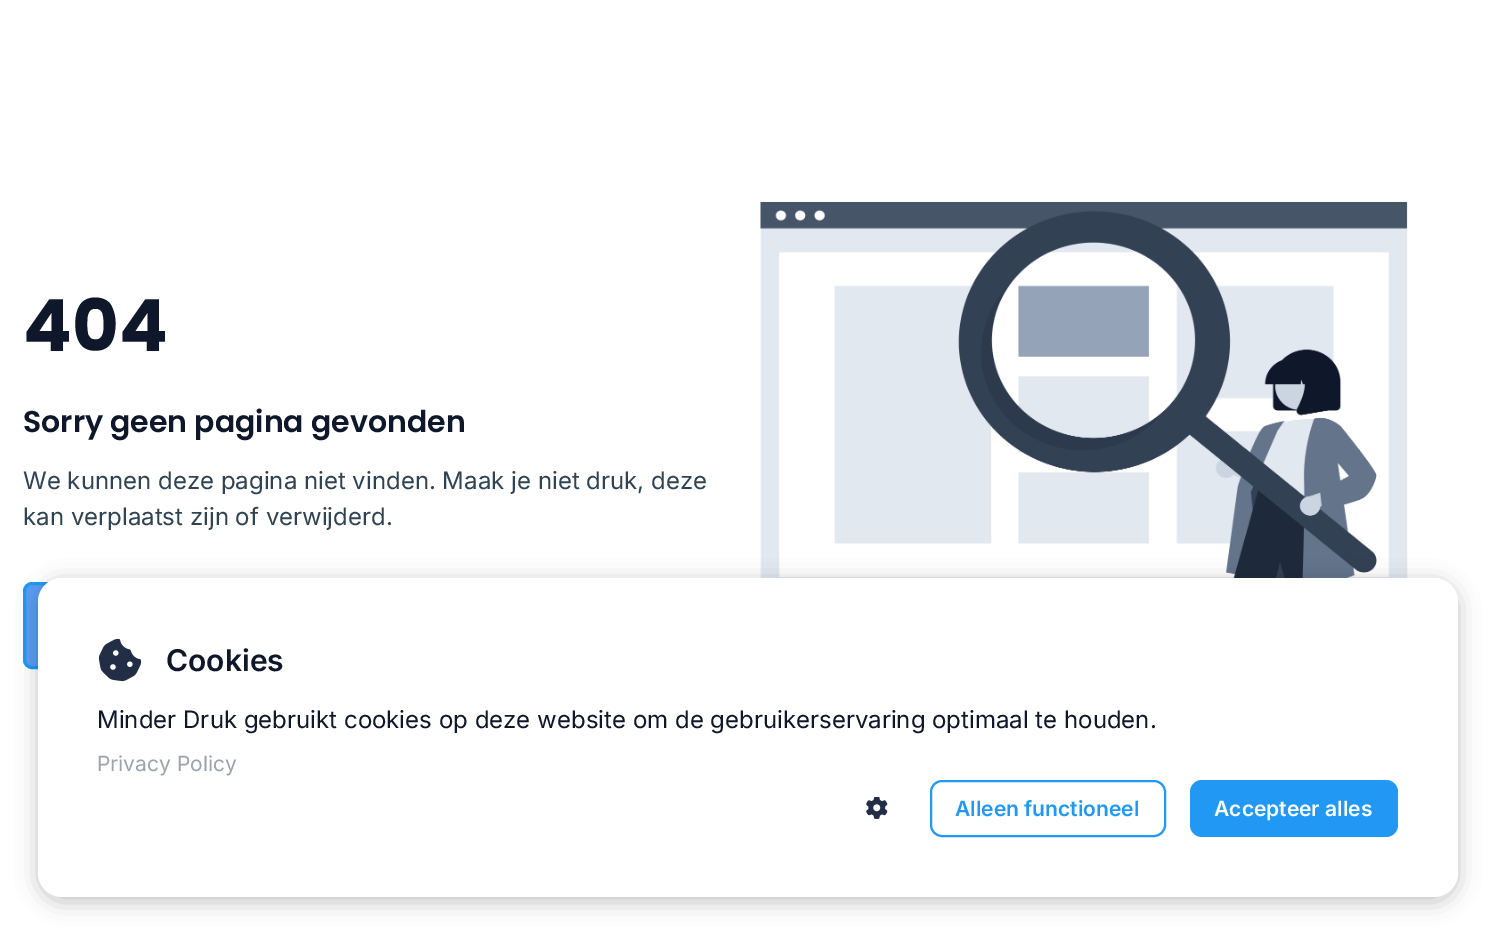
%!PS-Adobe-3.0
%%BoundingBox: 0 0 1495 941
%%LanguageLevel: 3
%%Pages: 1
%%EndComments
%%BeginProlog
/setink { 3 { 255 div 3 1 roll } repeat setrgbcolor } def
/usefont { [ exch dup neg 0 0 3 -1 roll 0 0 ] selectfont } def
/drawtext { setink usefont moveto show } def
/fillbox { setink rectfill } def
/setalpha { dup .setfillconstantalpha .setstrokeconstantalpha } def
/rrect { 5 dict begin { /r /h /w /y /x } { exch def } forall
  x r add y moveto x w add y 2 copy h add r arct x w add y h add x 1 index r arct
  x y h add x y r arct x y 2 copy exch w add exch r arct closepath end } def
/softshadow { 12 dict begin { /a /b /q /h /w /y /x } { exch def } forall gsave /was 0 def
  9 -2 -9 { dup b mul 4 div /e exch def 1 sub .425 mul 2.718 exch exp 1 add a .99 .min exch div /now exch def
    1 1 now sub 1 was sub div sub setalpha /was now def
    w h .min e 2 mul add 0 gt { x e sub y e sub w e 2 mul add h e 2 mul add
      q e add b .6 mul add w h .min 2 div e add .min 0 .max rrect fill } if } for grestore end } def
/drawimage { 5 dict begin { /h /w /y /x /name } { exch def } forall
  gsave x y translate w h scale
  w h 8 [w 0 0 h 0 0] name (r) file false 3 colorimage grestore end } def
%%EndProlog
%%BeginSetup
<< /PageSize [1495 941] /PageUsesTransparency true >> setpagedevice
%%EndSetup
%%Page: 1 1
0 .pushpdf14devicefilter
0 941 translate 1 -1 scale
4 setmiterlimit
0 0 1495 941 255 255 255 fillbox
(404) 23 351 /Poppins-Bold 72 15 23 42 drawtext
(Sorry geen pagina gevonden) 23 432 /Poppins-SemiBold 30 15 23 42 drawtext
(We kunnen deze pagina niet vinden. Maak je niet druk, deze) 23 489 /Inter-Regular 24 48 67 82 drawtext
(kan verplaatst zijn of verwijderd.) 23 525 /Inter-Regular 24 48 67 82 drawtext
92 156 245 setink
24.5 583.5 496 84 7.5 rrect gsave fill grestore
33 152 243 setink
3 setlinewidth
stroke
(assets/img1.rgb) 760 202 648 376 drawimage
0 0 0 setink
38 582 1420 320 24 11 0.24 softshadow
255 255 255 setink
38 578 1420 319 24 rrect fill
(assets/img2.rgb) 98 638 44 44 drawimage
(Cookies) 166 671 /Inter-SemiBold 30 15 23 42 drawtext
(Minder Druk gebruikt cookies op deze website om de gebruikerservaring optimaal te houden.) 97 728 /Inter-Regular 24 15 23 42 drawtext
(Privacy Policy) 97 771 /Inter-Regular 21 156 163 175 drawtext
(assets/img3.rgb) 866 797 22 22 drawimage
33 152 243 setink
2 setlinewidth
931 781 234 55 11 rrect stroke
(Alleen functioneel) 955 816 /Inter-SemiBold 21 33 152 243 drawtext
1190 780 208 57 12 rrect fill
(Accepteer alles) 1214 816 /Inter-SemiBold 21 255 255 255 drawtext
.poppdf14devicefilter showpage
%%EOF
